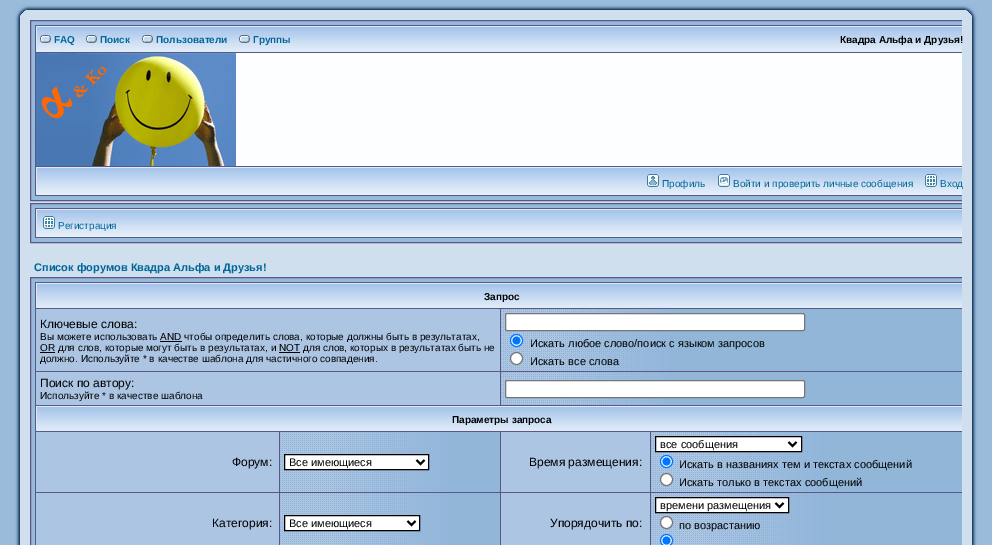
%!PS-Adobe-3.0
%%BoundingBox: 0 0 992 545
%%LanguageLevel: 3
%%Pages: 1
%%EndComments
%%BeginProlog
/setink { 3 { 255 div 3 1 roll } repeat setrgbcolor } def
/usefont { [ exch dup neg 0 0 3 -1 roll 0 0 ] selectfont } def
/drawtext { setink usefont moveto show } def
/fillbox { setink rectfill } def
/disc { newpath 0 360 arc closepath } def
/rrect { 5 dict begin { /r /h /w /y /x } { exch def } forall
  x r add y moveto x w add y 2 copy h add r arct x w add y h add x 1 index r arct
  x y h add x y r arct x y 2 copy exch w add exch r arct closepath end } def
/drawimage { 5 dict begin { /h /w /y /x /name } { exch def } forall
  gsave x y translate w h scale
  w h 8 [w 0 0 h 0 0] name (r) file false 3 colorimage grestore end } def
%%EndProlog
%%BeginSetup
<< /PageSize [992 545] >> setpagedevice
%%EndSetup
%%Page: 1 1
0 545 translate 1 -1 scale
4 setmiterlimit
0 0 992 545 155 187 218 fillbox
(assets/img1.rgb) 14 4 16 16 drawimage
(assets/img2.rgb) 30 4 932 16 drawimage
(assets/img3.rgb) 962 4 16 16 drawimage
(assets/img4.rgb) 14 20 16 525 drawimage
30 201 932 76 207 223 238 fillbox
31 21 931 179 151 185 218 fillbox
88 88 137 setink
30.5 20.5 941 180 rectstroke
35 25 927 171 88 88 137 fillbox
36 26 930 1 225 234 244 fillbox
36 26 1 26 225 234 244 fillbox
(assets/img5.rgb) 37 27 620 25 drawimage
(assets/img6.rgb) 40 35 11 8 drawimage
(FAQ) 54 43 /LiberationSans-Bold 10 0 102 153 drawtext
(assets/img6.rgb) 86 35 11 8 drawimage
(Поиск) 100 43 /LiberationSans-Bold 10 0 102 153 drawtext
(assets/img6.rgb) 142 35 11 8 drawimage
(Пользователи) 156 43 /LiberationSans-Bold 10 0 102 153 drawtext
(assets/img6.rgb) 239 35 11 8 drawimage
(Группы) 253 43 /LiberationSans-Bold 10 0 102 153 drawtext
(assets/img7.rgb) 657 27 305 25 drawimage
36 167 930 1 225 234 244 fillbox
31 204 931 38 151 185 218 fillbox
88 88 137 setink
30.5 203.5 941 39 rectstroke
35 208 927 30 88 88 137 fillbox
36 209 930 1 225 234 244 fillbox
31 278 931 267 151 185 218 fillbox
88 88 137 setink
30.5 277.5 941 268 rectstroke
35 282 927 263 88 88 137 fillbox
36 283 930 1 225 234 244 fillbox
36 406 930 1 225 234 244 fillbox
(assets/img18.rgb) 962 20 16 525 drawimage
(Квадра Альфа и Друзья!) 840 43 /LiberationSans-Bold 10 0 0 0 drawtext
236 53 726 113 253 254 255 fillbox
(assets/img8.rgb) 36 53 200 113 drawimage
(assets/img9.rgb) 37 168 925 27 drawimage
36 167 1 28 225 234 244 fillbox
(assets/img10.rgb) 647 174 12 13 drawimage
(Профиль) 662 187 /LiberationSans-Regular 10 0 102 153 drawtext
(assets/img11.rgb) 718 174 12 13 drawimage
(Войти и проверить личные сообщения) 733 187 /LiberationSans-Regular 10 0 102 153 drawtext
(assets/img12.rgb) 925 174 12 13 drawimage
(Вход) 940 187 /LiberationSans-Regular 10 0 102 153 drawtext
(assets/img9.rgb) 37 210 925 27 drawimage
36 209 1 28 225 234 244 fillbox
(assets/img12.rgb) 43 216 12 13 drawimage
(Регистрация) 58 229 /LiberationSans-Regular 10 0 102 153 drawtext
(Список форумов Квадра Альфа и Друзья!) 34 271 /LiberationSans-Bold 11 0 102 153 drawtext
(assets/img13.rgb) 37 284 925 24 drawimage
36 283 1 25 225 234 244 fillbox
(Запрос) 484 300 /LiberationSans-Bold 10 0 0 0 drawtext
36 309 464 62 171 197 226 fillbox
(Ключевые слова:) 40 328 /LiberationSans-Regular 12 0 0 0 drawtext
(Вы можете использовать AND чтобы определить слова, которые должны быть в результатах,) 40 340 /LiberationSans-Regular 10 0 0 0 drawtext
160 341 22 1 0 0 0 fillbox
40 352 15 1 0 0 0 fillbox
(OR для слов, которые могут быть в результатах, и NOT для слов, которых в результатах быть не) 40 351 /LiberationSans-Regular 10 0 0 0 drawtext
279 352 21 1 0 0 0 fillbox
(должно. Используйте * в качестве шаблона для частичного совпадения.) 40 362 /LiberationSans-Regular 10 0 0 0 drawtext
669 309 293 62 146 182 216 fillbox
(assets/img14.rgb) 501 309 168 62 drawimage
255 255 255 setink
505.5 313.5 299 17 1.5 rrect gsave fill grestore
118 118 118 setink
stroke
255 255 255 setink
516.5 340.5 6 disc gsave fill grestore
0 117 255 setink
stroke
516.5 340.5 4 disc fill
(Искать любое слово/поиск с языком запросов) 530 347 /LiberationSans-Regular 11 0 0 0 drawtext
255 255 255 setink
516.5 358.5 6 disc gsave fill grestore
118 118 118 setink
stroke
(Искать все слова) 530 365 /LiberationSans-Regular 11 0 0 0 drawtext
36 372 464 33 171 197 226 fillbox
(Поиск по автору:) 40 387 /LiberationSans-Regular 12 0 0 0 drawtext
(Используйте * в качестве шаблона) 40 399 /LiberationSans-Regular 10 0 0 0 drawtext
669 372 293 33 146 182 216 fillbox
(assets/img15.rgb) 501 372 168 33 drawimage
255 255 255 setink
505.5 380.5 299 17 1.5 rrect gsave fill grestore
118 118 118 setink
stroke
(assets/img13.rgb) 37 407 925 24 drawimage
36 406 1 25 225 234 244 fillbox
(Параметры запроса) 452 423 /LiberationSans-Bold 10 0 0 0 drawtext
36 432 243 60 171 197 226 fillbox
(Форум:) 232 466 /LiberationSans-Regular 12 0 0 0 drawtext
448 432 52 60 146 182 216 fillbox
(assets/img16.rgb) 280 432 168 60 drawimage
255 255 255 setink
284.5 454.5 moveto 428.5 454.5 lineto 428.5 469.5 lineto 284.5 469.5 lineto closepath gsave fill grestore
0 0 0 setink
stroke
2 setlinewidth
416.5 460 moveto 420.5 464 lineto 424.5 460 lineto stroke
(Все имеющиеся) 289 466 /LiberationSans-Regular 11 0 0 0 drawtext
501 432 149 60 171 197 226 fillbox
(Время размещения:) 529 466 /LiberationSans-Regular 12 0 0 0 drawtext
819 432 143 60 146 182 216 fillbox
(assets/img16.rgb) 651 432 168 60 drawimage
255 255 255 setink
655.5 436.5 moveto 801.5 436.5 lineto 801.5 451.5 lineto 655.5 451.5 lineto closepath gsave fill grestore
0 0 0 setink
1 setlinewidth
stroke
2 setlinewidth
788.5 442 moveto 792.5 446 lineto 796.5 442 lineto stroke
(все сообщения) 660 448 /LiberationSans-Regular 11 0 0 0 drawtext
255 255 255 setink
666.5 461.5 6 disc gsave fill grestore
0 117 255 setink
1 setlinewidth
stroke
666.5 461.5 4 disc fill
(Искать в названиях тем и текстах сообщений) 679 468 /LiberationSans-Regular 11 0 0 0 drawtext
255 255 255 setink
666.5 479.5 6 disc gsave fill grestore
118 118 118 setink
stroke
(Искать только в текстах сообщений) 679 486 /LiberationSans-Regular 11 0 0 0 drawtext
36 493 243 52 171 197 226 fillbox
(Категория:) 212 527 /LiberationSans-Regular 12 0 0 0 drawtext
448 493 52 52 146 182 216 fillbox
(assets/img17.rgb) 280 493 168 52 drawimage
255 255 255 setink
284.5 515.5 moveto 419.5 515.5 lineto 419.5 530.5 lineto 284.5 530.5 lineto closepath gsave fill grestore
0 0 0 setink
stroke
2 setlinewidth
407.5 521 moveto 411.5 525 lineto 415.5 521 lineto stroke
(Все имеющиеся) 289 527 /LiberationSans-Regular 11 0 0 0 drawtext
501 493 149 52 171 197 226 fillbox
(Упорядочить по:) 550 527 /LiberationSans-Regular 12 0 0 0 drawtext
819 493 143 52 146 182 216 fillbox
(assets/img17.rgb) 651 493 168 52 drawimage
255 255 255 setink
655.5 497.5 moveto 788.5 497.5 lineto 788.5 512.5 lineto 655.5 512.5 lineto closepath gsave fill grestore
0 0 0 setink
1 setlinewidth
stroke
2 setlinewidth
775.5 503 moveto 779.5 507 lineto 783.5 503 lineto stroke
(времени размещения) 660 509 /LiberationSans-Regular 11 0 0 0 drawtext
255 255 255 setink
666.5 522.5 6 disc gsave fill grestore
118 118 118 setink
1 setlinewidth
stroke
(по возрастанию) 679 529 /LiberationSans-Regular 11 0 0 0 drawtext
255 255 255 setink
666.5 540.5 6 disc gsave fill grestore
0 117 255 setink
stroke
666.5 540.5 4 disc fill
showpage
%%EOF
